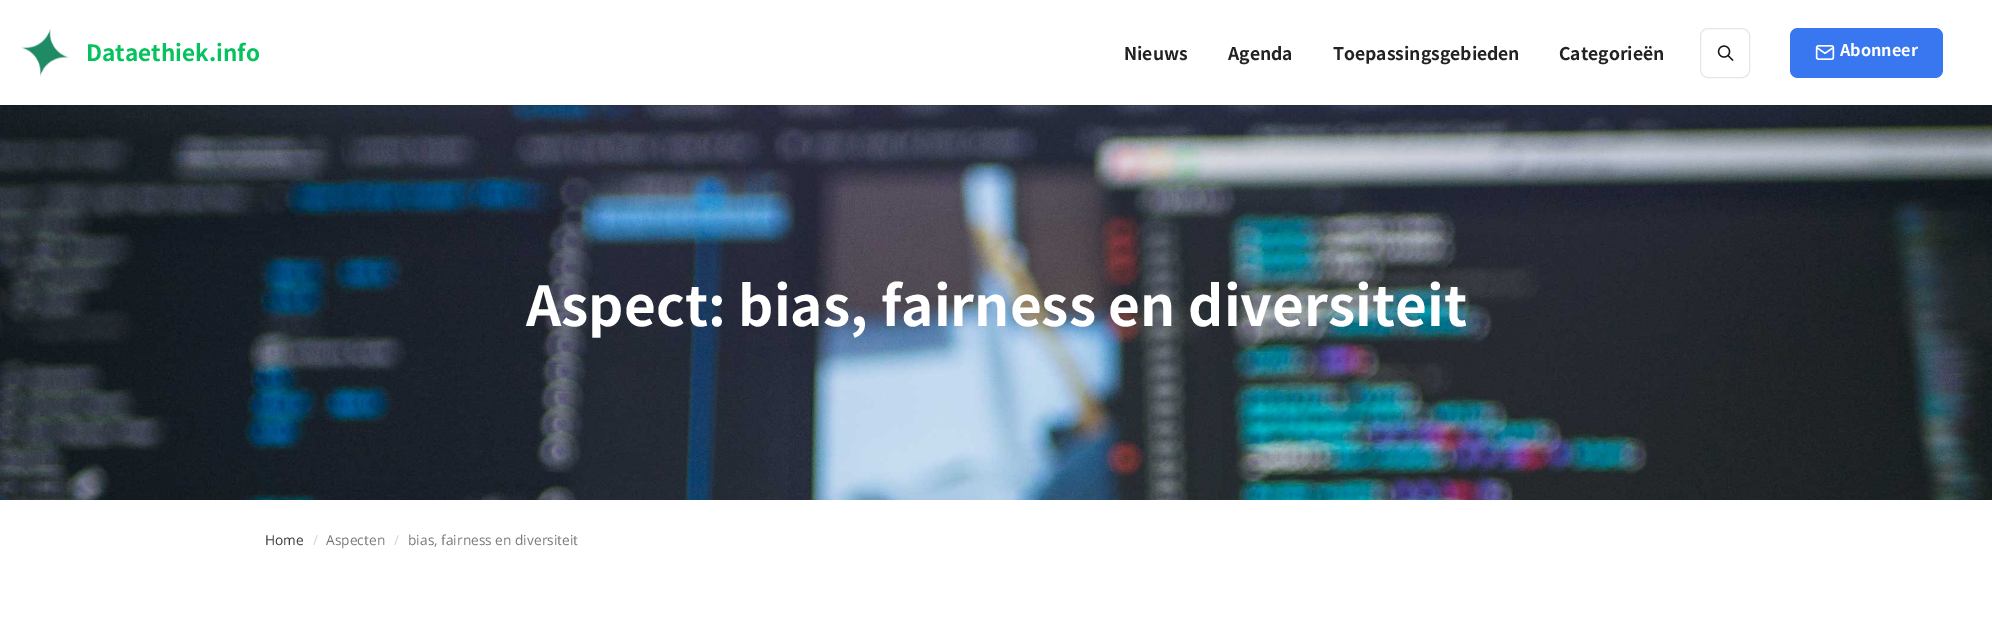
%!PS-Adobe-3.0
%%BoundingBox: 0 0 1992 633
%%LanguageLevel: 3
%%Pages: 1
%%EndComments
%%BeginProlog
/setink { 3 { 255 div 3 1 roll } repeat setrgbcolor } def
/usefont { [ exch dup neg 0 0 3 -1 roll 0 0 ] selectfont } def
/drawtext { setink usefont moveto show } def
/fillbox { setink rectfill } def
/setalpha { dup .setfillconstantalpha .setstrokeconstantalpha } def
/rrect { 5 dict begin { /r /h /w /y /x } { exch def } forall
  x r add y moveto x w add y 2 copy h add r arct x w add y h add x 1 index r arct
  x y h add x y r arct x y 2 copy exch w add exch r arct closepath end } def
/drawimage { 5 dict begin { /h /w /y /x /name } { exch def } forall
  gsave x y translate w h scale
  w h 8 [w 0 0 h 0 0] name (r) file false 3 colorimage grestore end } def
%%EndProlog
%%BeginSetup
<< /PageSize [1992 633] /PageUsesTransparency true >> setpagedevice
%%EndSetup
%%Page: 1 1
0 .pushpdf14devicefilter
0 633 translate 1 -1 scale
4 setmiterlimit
0 0 1992 633 255 255 255 fillbox
(assets/img4.rgb) 0 105 1992 395 drawimage
0.11 setalpha
21 21 21 setink
0 105 moveto 0 106 lineto 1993 106 lineto 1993 1 lineto 1992 1 lineto 1992 105 lineto closepath fill
1 setalpha
(assets/img1.rgb) 21 28 49 49 drawimage
(Dataethiek.info) 86 61 /NotoSansHK-Bold 22.5 6 194 94 drawtext
(Nieuws) 1124 60 /NotoSansHK-Bold 17.5 34 34 34 drawtext
(Agenda) 1228 60 /NotoSansHK-Bold 17.5 34 34 34 drawtext
(Toepassingsgebieden) 1333 60 /NotoSansHK-Bold 17.5 34 34 34 drawtext
(Categorieën) 1559 60 /NotoSansHK-Bold 17.5 34 34 34 drawtext
(assets/img2.rgb) 1717 45 17 16 drawimage
230 230 230 setink
1700.5 28.5 49 49 7.5 rrect stroke
57 119 241 setink
1790 28 153 50 8 rrect fill
(assets/img3.rgb) 1815 45 20 15 drawimage
(Abonneer) 1840 56 /NotoSansHK-Bold 16.25 255 255 255 drawtext
(Aspect: bias, fairness en diversiteit) 526 326 /NotoSansHK-Bold 55 255 255 255 drawtext
(Home) 265 545 /OpenSans-Regular 13.75 56 56 56 drawtext
(/) 313 545 /OpenSans-Regular 13.75 209 209 209 drawtext
(Aspecten) 326 545 /OpenSans-Regular 13.75 119 119 119 drawtext
(/) 394 545 /OpenSans-Regular 13.75 209 209 209 drawtext
(bias, fairness en diversiteit) 408 545 /OpenSans-Regular 13.75 119 119 119 drawtext
.poppdf14devicefilter showpage
%%EOF
